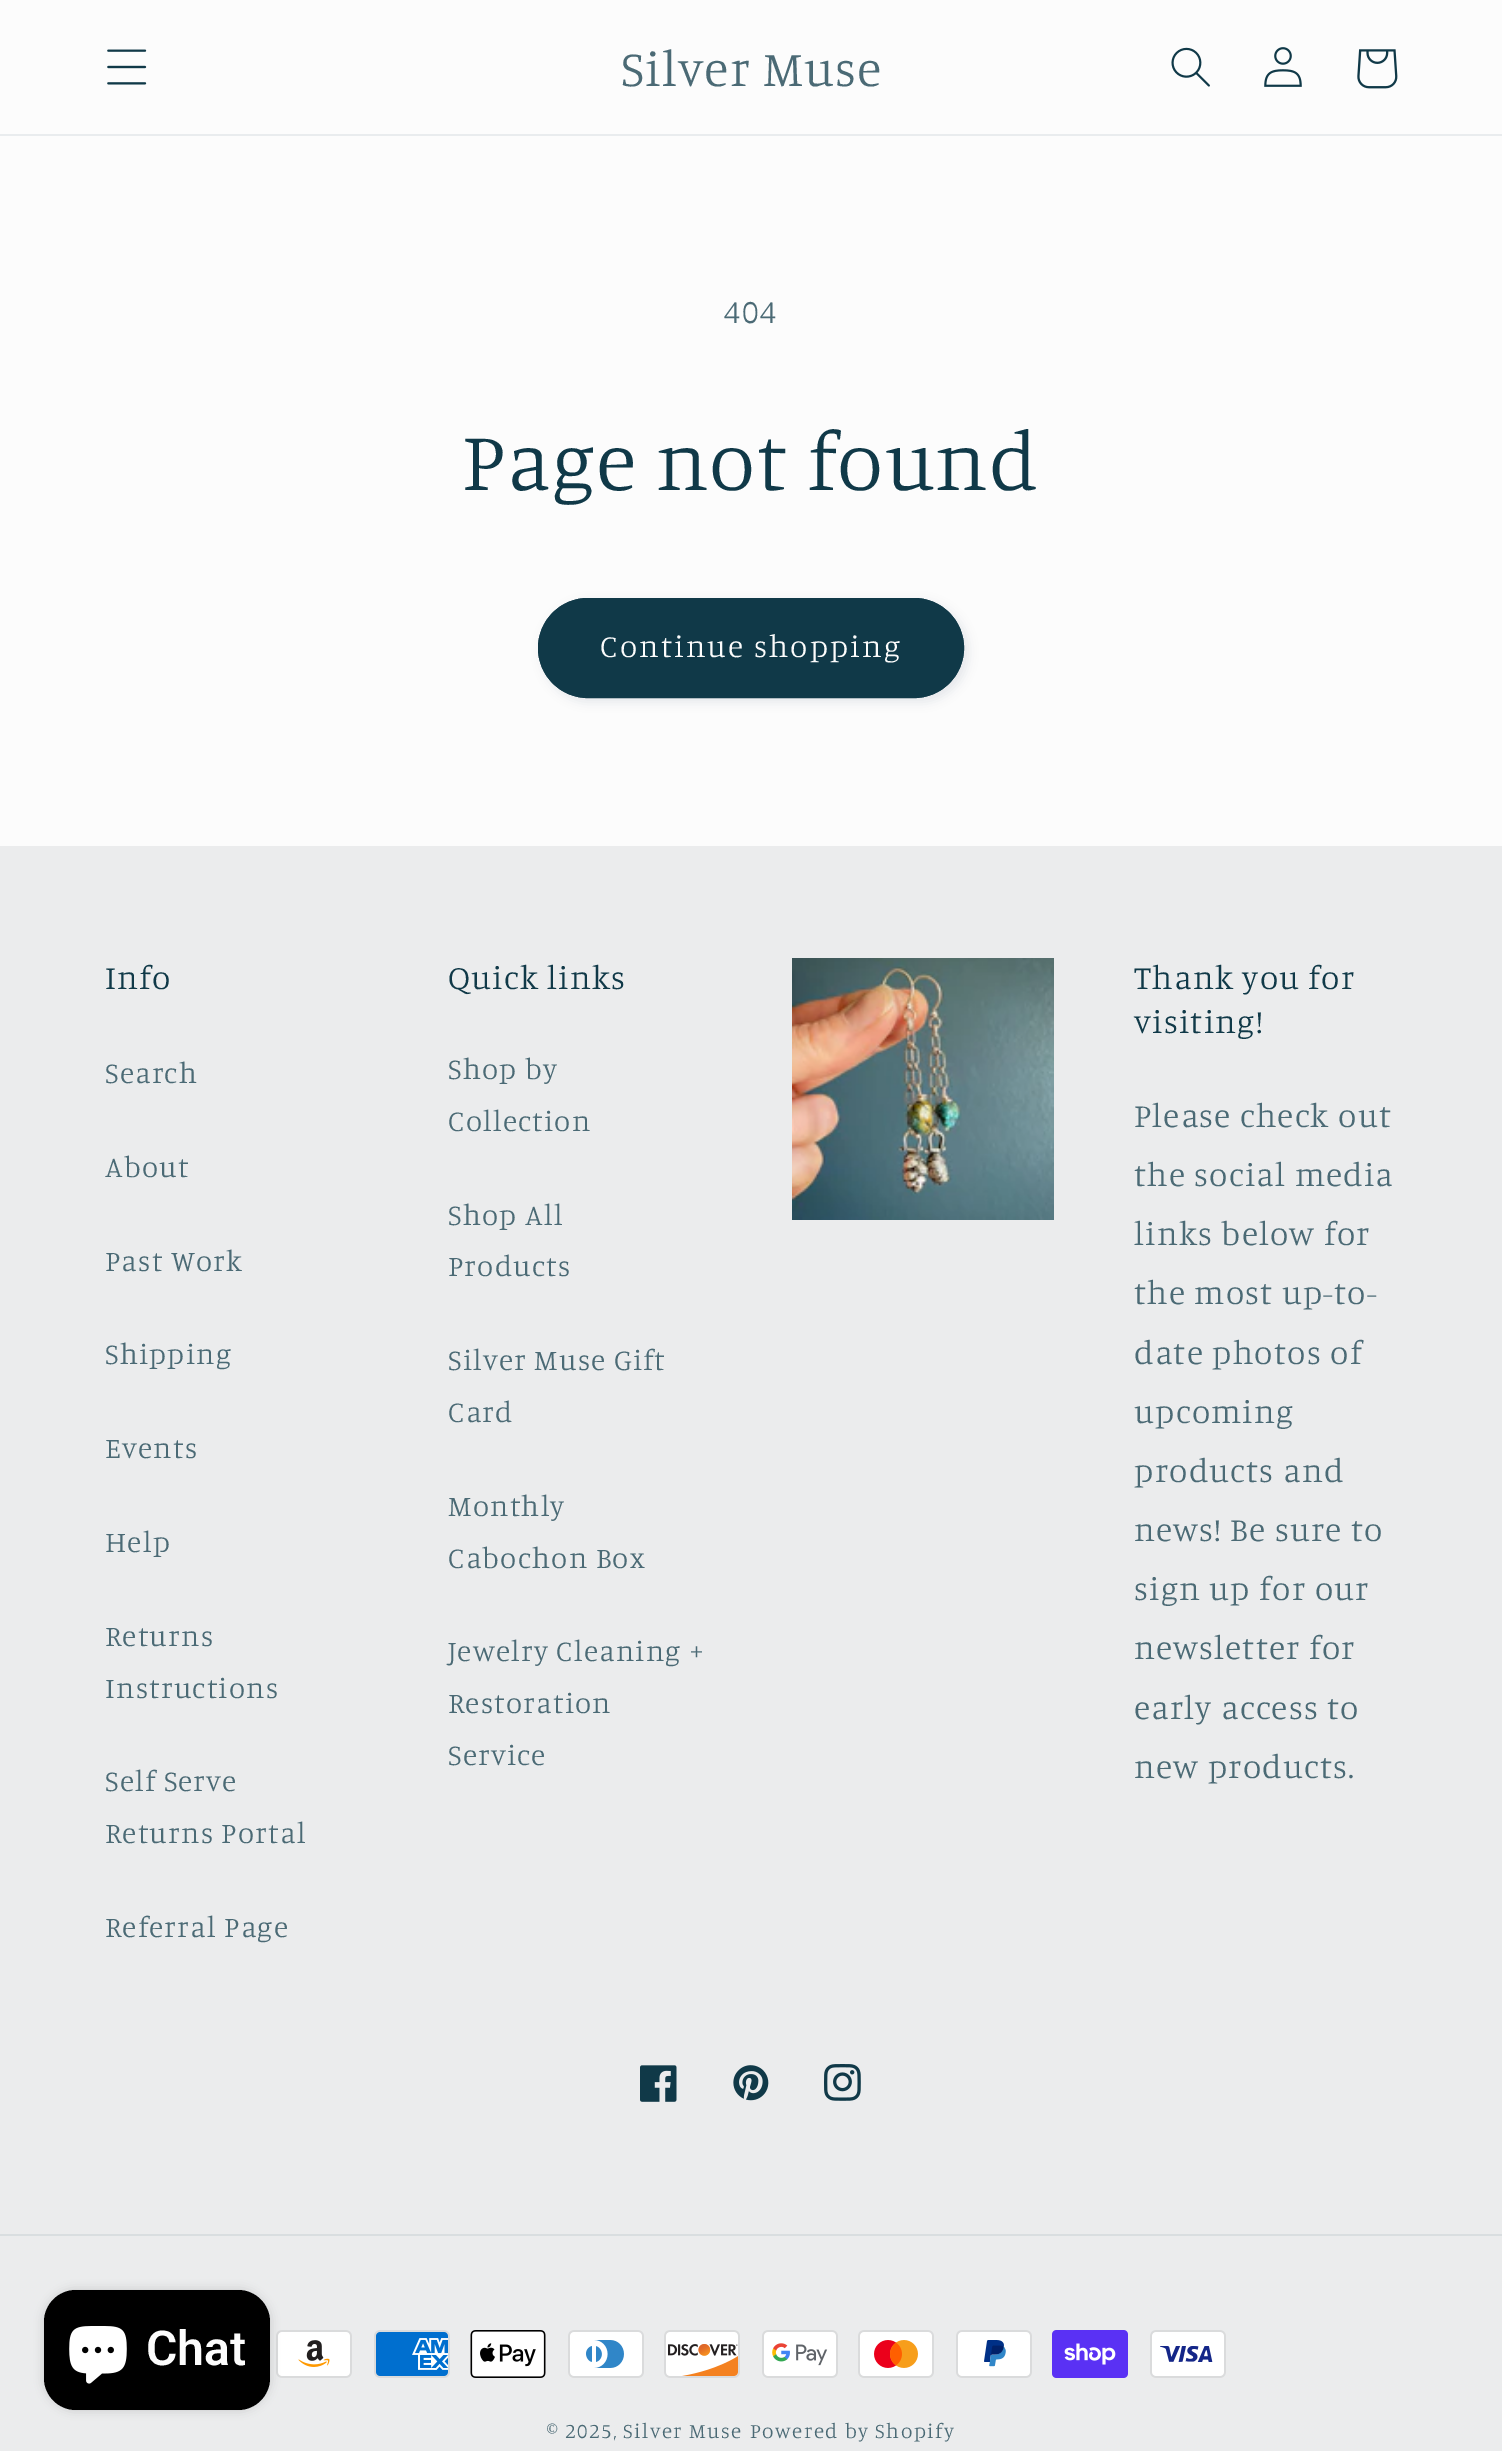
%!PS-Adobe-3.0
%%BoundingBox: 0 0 1502 2451
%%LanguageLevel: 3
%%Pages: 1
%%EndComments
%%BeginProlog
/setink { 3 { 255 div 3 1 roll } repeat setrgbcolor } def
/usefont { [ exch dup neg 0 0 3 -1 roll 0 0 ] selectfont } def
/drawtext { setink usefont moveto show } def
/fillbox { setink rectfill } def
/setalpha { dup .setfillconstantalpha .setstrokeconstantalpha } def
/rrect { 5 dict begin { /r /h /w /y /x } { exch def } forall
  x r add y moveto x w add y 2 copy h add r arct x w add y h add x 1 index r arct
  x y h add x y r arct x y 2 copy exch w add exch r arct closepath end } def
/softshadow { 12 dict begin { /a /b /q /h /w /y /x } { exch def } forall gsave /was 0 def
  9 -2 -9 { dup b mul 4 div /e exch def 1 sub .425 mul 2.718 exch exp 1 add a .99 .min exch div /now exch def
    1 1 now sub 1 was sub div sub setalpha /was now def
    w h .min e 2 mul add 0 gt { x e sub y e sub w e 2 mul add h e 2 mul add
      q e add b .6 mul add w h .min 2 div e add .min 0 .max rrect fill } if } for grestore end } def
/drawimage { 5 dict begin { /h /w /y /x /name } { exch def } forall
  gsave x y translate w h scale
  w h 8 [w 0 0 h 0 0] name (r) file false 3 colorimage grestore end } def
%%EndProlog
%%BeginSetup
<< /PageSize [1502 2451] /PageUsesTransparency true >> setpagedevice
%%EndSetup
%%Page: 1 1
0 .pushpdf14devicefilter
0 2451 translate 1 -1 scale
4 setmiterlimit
0 0 1502 2451 252 252 252 fillbox
0 134 1502 2 233 236 238 fillbox
(assets/img1.rgb) 107 49 40 36 drawimage
/Manuale-Light 50.5 usefont
75 106 117 setink
621 86 moveto 1.25 0 (Silver Muse) ashow
(assets/img2.rgb) 1171 47 39 40 drawimage
(assets/img3.rgb) 1264 47 38 40 drawimage
(assets/img4.rgb) 1357 49 41 40 drawimage
/Manuale-Light 33.5 usefont
724 323 moveto 1.25 0 (404) ashow
/Manuale-Light 84 usefont
16 57 72 setink
462 490 moveto 1.25 0 (Page not found) ashow
542 602 426 100 50 5 0.1 softshadow
538 598 426 100 50 rrect fill
2 setlinewidth
539 599 424 98 49 rrect stroke
/Manuale-Light 31.5 usefont
252 252 252 setink
600 657 moveto 2.1 0 (Continue shopping) ashow
0 846 1502 1605 235 236 237 fillbox
/Manuale-Light 33.5 usefont
16 57 72 setink
105 989 moveto 1.25 0 (Info) ashow
/Manuale-Light 29.5 usefont
75 106 117 setink
105 1083 moveto 1.25 0 (Search) ashow
105 1177 moveto 1.25 0 (About) ashow
105 1271 moveto 1.25 0 (Past Work) ashow
105 1364 moveto 1.25 0 (Shipping) ashow
105 1458 moveto 1.25 0 (Events) ashow
105 1552 moveto 1.25 0 (Help) ashow
105 1646 moveto 1.25 0 (Returns) ashow
105 1698 moveto 1.25 0 (Instructions) ashow
105 1791 moveto 1.25 0 (Self Serve) ashow
105 1843 moveto 1.25 0 (Returns Portal) ashow
105 1937 moveto 1.25 0 (Referral Page) ashow
/Manuale-Light 33.5 usefont
16 57 72 setink
448 989 moveto 1.25 0 (Quick links) ashow
/Manuale-Light 29.5 usefont
75 106 117 setink
448 1079 moveto 1.25 0 (Shop by) ashow
448 1131 moveto 1.25 0 (Collection) ashow
448 1225 moveto 1.25 0 (Shop All) ashow
448 1276 moveto 1.25 0 (Products) ashow
448 1370 moveto 1.25 0 (Silver Muse Gift) ashow
448 1422 moveto 1.25 0 (Card) ashow
448 1516 moveto 1.25 0 (Monthly) ashow
448 1568 moveto 1.25 0 (Cabochon Box) ashow
448 1661 moveto 1.25 0 (Jewelry Cleaning +) ashow
448 1713 moveto 1.25 0 (Restoration) ashow
448 1765 moveto 1.25 0 (Service) ashow
(assets/img5.rgb) 792 958 262 262 drawimage
/Manuale-Light 33.5 usefont
16 57 72 setink
1134 989 moveto 1.25 0 (Thank you for) ashow
1134 1033 moveto 1.25 0 (visiting!) ashow
75 106 117 setink
1134 1127 moveto 1.25 0 (Please check out) ashow
1134 1186 moveto 1.25 0 (the social media) ashow
1134 1245 moveto 1.25 0 (links below for) ashow
1134 1304 moveto 1.25 0 (the most up-to-) ashow
1134 1364 moveto 1.25 0 (date photos of) ashow
1134 1423 moveto 1.25 0 (upcoming) ashow
1134 1482 moveto 1.25 0 (products and) ashow
1134 1541 moveto 1.25 0 (news! Be sure to) ashow
1134 1600 moveto 1.25 0 (sign up for our) ashow
1134 1659 moveto 1.25 0 (newsletter for) ashow
1134 1719 moveto 1.25 0 (early access to) ashow
1134 1778 moveto 1.25 0 (new products.) ashow
(assets/img6.rgb) 640 2065 37 37 drawimage
(assets/img7.rgb) 733 2065 36 36 drawimage
(assets/img8.rgb) 824 2064 37 37 drawimage
0 2234 1502 2 217 222 224 fillbox
(assets/img9.rgb) 276 2330 76 48 drawimage
(assets/img10.rgb) 374 2330 76 48 drawimage
(assets/img11.rgb) 470 2330 76 48 drawimage
(assets/img12.rgb) 568 2330 76 48 drawimage
(assets/img13.rgb) 664 2330 76 48 drawimage
(assets/img14.rgb) 762 2330 76 48 drawimage
(assets/img15.rgb) 858 2330 76 48 drawimage
(assets/img16.rgb) 956 2330 76 48 drawimage
(assets/img17.rgb) 1052 2330 76 48 drawimage
(assets/img18.rgb) 1150 2330 76 48 drawimage
/Manuale-Light 21 usefont
75 106 117 setink
547 2438 moveto 1.5 0 (© 2025, Silver Muse) ashow
750 2438 moveto 1.5 0 (Powered by Shopify) ashow
0 0 0 setink
44 2290 226 120 32 5 0.15 softshadow
44 2290 226 120 32 rrect fill
(assets/img19.rgb) 69 2326 58 58 drawimage
(Chat) 146 2365 /Roboto-SemiBold 48 252 252 252 drawtext
.poppdf14devicefilter showpage
%%EOF
